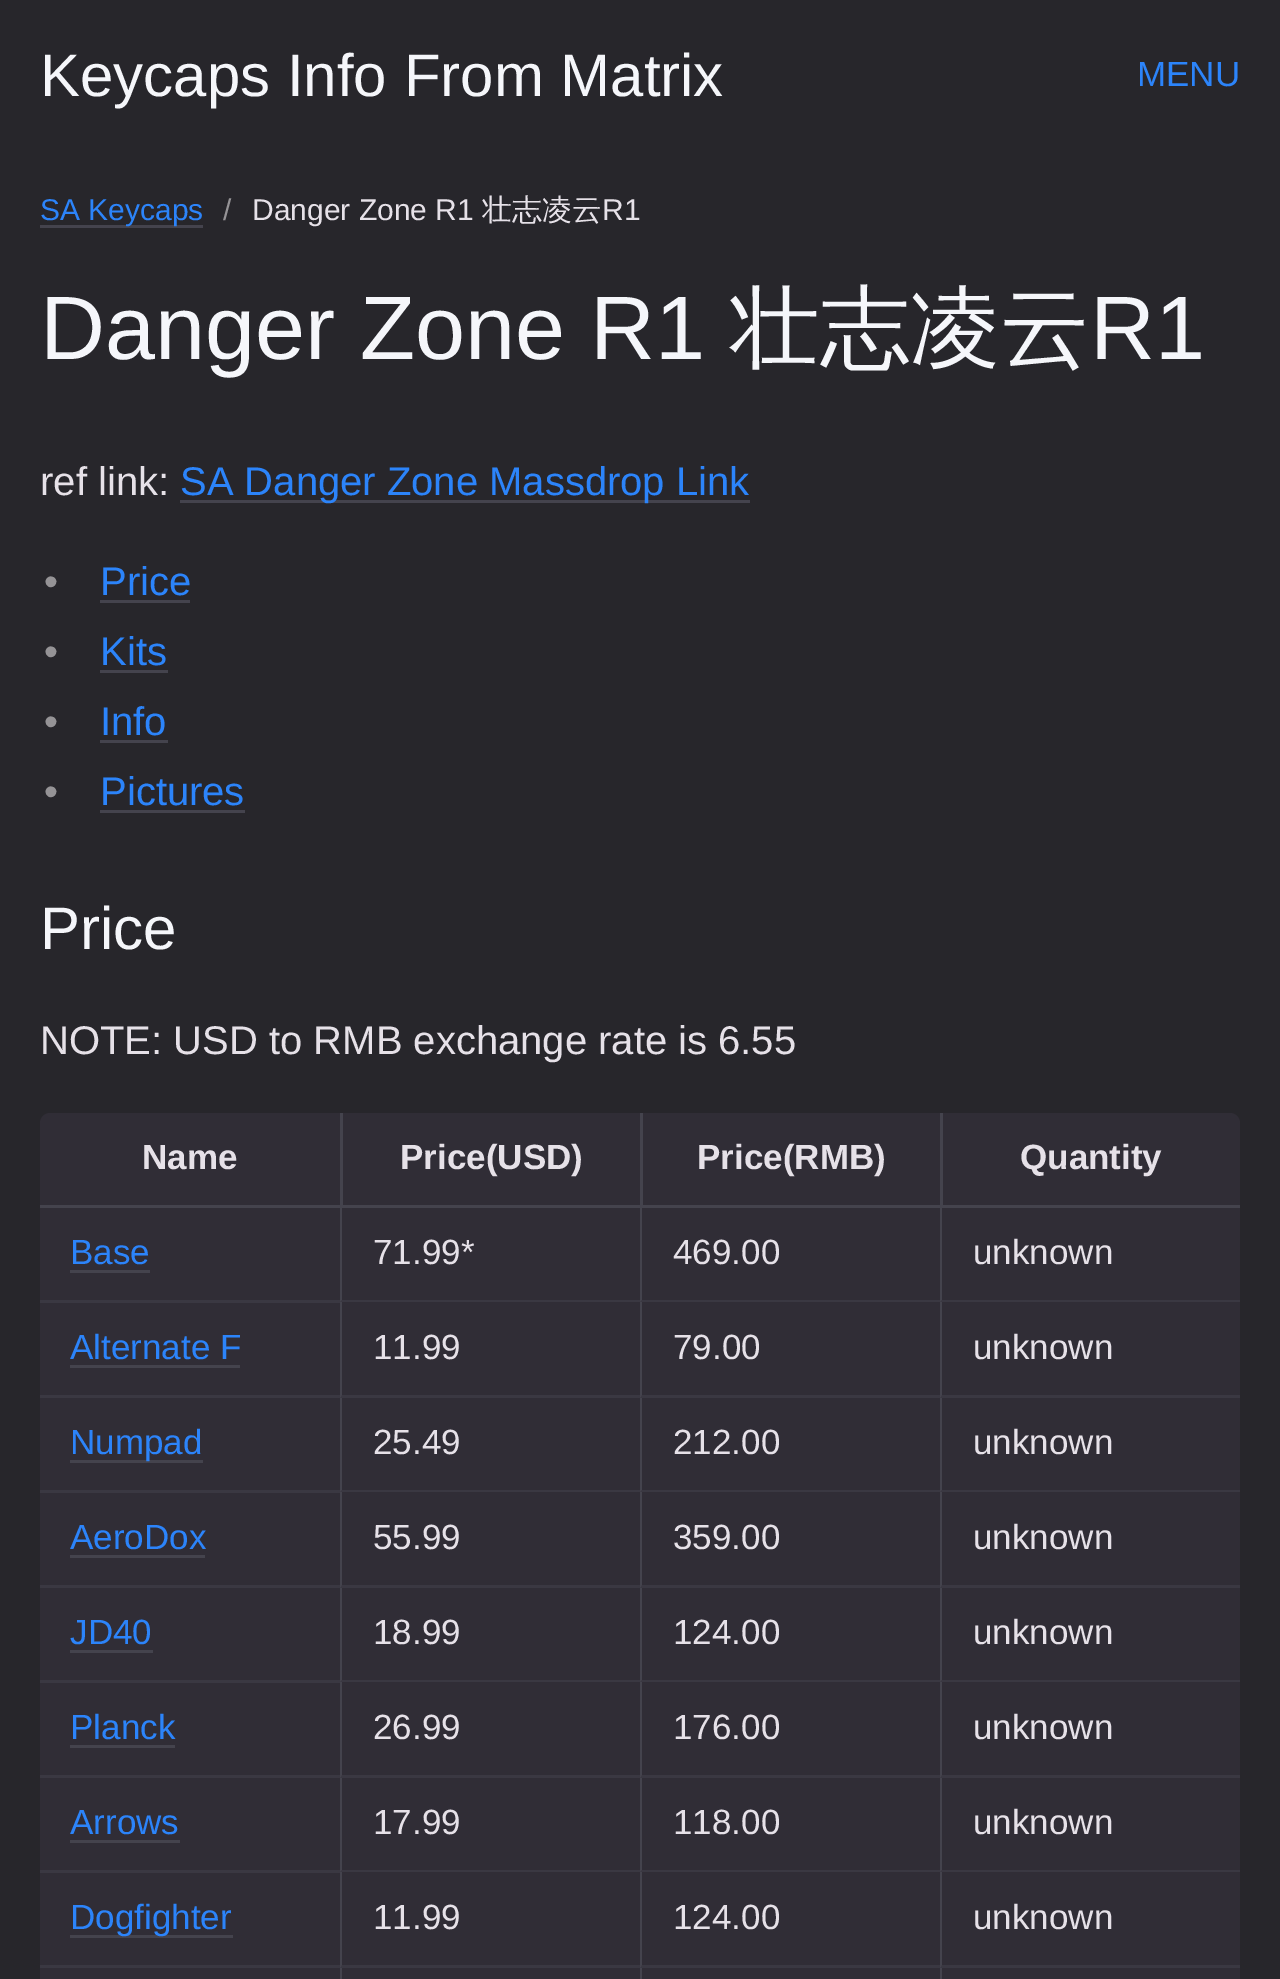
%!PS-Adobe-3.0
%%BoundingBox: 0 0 1280 1979
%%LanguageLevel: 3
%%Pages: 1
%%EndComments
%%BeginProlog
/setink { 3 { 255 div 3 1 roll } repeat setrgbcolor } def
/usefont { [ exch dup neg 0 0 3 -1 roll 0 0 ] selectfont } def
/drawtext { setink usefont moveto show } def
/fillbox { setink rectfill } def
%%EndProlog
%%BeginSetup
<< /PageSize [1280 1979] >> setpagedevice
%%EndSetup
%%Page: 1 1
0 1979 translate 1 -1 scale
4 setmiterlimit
0 0 1280 1979 39 38 43 fillbox
(Keycaps Info From Matrix) 40 96 /LiberationSans-Regular 60 245 246 250 drawtext
(MENU) 1137 86 /LiberationSans-Regular 35 44 132 250 drawtext
40 225 163 3 68 67 77 fillbox
(SA Keycaps) 40 220 /LiberationSans-Regular 30 44 132 250 drawtext
(/) 223 220 /LiberationSans-Regular 30 149 147 150 drawtext
(Danger Zone R1) 252 220 /LiberationSans-Regular 30 230 225 232 drawtext
(壮志凌云) 482 220 /WenQuanYiZenHei-Medium 30 230 225 232 drawtext
(R1) 602 220 /LiberationSans-Regular 30 230 225 232 drawtext
(Danger Zone R1) 40 359 /LiberationSans-Regular 90 245 246 250 drawtext
(壮志凌云) 730 359 /WenQuanYiZenHei-Medium 90 245 246 250 drawtext
(R1) 1090 359 /LiberationSans-Regular 90 245 246 250 drawtext
(ref link:) 40 495 /LiberationSans-Regular 40 230 225 232 drawtext
180 500 570 3 68 67 77 fillbox
(SA Danger Zone Massdrop Link) 180 495 /LiberationSans-Regular 40 44 132 250 drawtext
(•) 44 595 /LiberationSans-Regular 40 149 147 150 drawtext
(Price) 100 595 /LiberationSans-Regular 40 44 132 250 drawtext
100 600 90 3 68 67 77 fillbox
(•) 44 665 /LiberationSans-Regular 40 149 147 150 drawtext
(Kits) 100 665 /LiberationSans-Regular 40 44 132 250 drawtext
100 670 68 3 68 67 77 fillbox
(•) 44 735 /LiberationSans-Regular 40 149 147 150 drawtext
(Info) 100 735 /LiberationSans-Regular 40 44 132 250 drawtext
100 740 68 3 68 67 77 fillbox
(•) 44 805 /LiberationSans-Regular 40 149 147 150 drawtext
(Pictures) 100 805 /LiberationSans-Regular 40 44 132 250 drawtext
100 810 145 3 68 67 77 fillbox
(Price) 40 949 /LiberationSans-Regular 60 245 246 250 drawtext
(NOTE: USD to RMB exchange rate is 6.55) 40 1054 /LiberationSans-Regular 40 230 225 232 drawtext
48 45 54 setink
50 1113 moveto 340 1113 lineto 340 1208 lineto 40 1208 lineto 40 1123 lineto 40 1117.5 44.5 1113 50 1113 curveto closepath fill
40 1205 900 3 68 67 77 fillbox
(Name) 142 1169 /LiberationSans-Bold 35 230 225 232 drawtext
343 1113 297 92 48 45 54 fillbox
340 1113 3 95 68 67 77 fillbox
(Price\(USD\)) 400 1169 /LiberationSans-Bold 35 230 225 232 drawtext
643 1113 297 92 48 45 54 fillbox
640 1113 3 95 68 67 77 fillbox
(Price\(RMB\)) 697 1169 /LiberationSans-Bold 35 230 225 232 drawtext
48 45 54 setink
940 1113 moveto 1230 1113 lineto 1235.5 1113 1240 1117.5 1240 1123 curveto 1240 1208 lineto 940 1208 lineto closepath fill
940 1205 300 3 68 67 77 fillbox
940 1113 3 95 68 67 77 fillbox
(Quantity) 1020 1169 /LiberationSans-Bold 35 230 225 232 drawtext
40 1208 300 92 48 45 54 fillbox
40 1300 300 3 58 56 66 fillbox
(Base) 70 1264 /LiberationSans-Regular 35 44 132 250 drawtext
70 1270 80 3 68 67 77 fillbox
340 1208 900 95 48 45 54 fillbox
58 56 66 setink
640 1302 moveto 340 1302 lineto 342 1300 lineto 640 1300 lineto closepath fill
68 67 77 setink
340 1302 moveto 340 1208 lineto 342 1208 lineto 342 1300 lineto closepath fill
(71.99*) 373 1264 /LiberationSans-Regular 35 230 225 232 drawtext
58 56 66 setink
940 1302 moveto 640 1302 lineto 642 1300 lineto 940 1300 lineto closepath fill
68 67 77 setink
640 1302 moveto 640 1208 lineto 642 1208 lineto 642 1300 lineto closepath fill
(469.00) 673 1264 /LiberationSans-Regular 35 230 225 232 drawtext
58 56 66 setink
1240 1302 moveto 940 1302 lineto 942 1300 lineto 1240 1300 lineto closepath fill
68 67 77 setink
940 1302 moveto 940 1208 lineto 942 1208 lineto 942 1300 lineto closepath fill
(unknown) 973 1264 /LiberationSans-Regular 35 230 225 232 drawtext
40 1303 300 92 48 45 54 fillbox
40 1395 300 3 58 56 66 fillbox
(Alternate F) 70 1359 /LiberationSans-Regular 35 44 132 250 drawtext
70 1365 170 3 68 67 77 fillbox
340 1303 900 95 48 45 54 fillbox
58 56 66 setink
640 1398 moveto 340 1398 lineto 342 1395 lineto 640 1395 lineto closepath fill
68 67 77 setink
340 1398 moveto 340 1302 lineto 342 1302 lineto 342 1395 lineto closepath fill
(11.99) 373 1359 /LiberationSans-Regular 35 230 225 232 drawtext
58 56 66 setink
940 1398 moveto 640 1398 lineto 642 1395 lineto 940 1395 lineto closepath fill
68 67 77 setink
640 1398 moveto 640 1302 lineto 642 1302 lineto 642 1395 lineto closepath fill
(79.00) 673 1359 /LiberationSans-Regular 35 230 225 232 drawtext
58 56 66 setink
1240 1398 moveto 940 1398 lineto 942 1395 lineto 1240 1395 lineto closepath fill
68 67 77 setink
940 1398 moveto 940 1302 lineto 942 1302 lineto 942 1395 lineto closepath fill
(unknown) 973 1359 /LiberationSans-Regular 35 230 225 232 drawtext
40 1398 300 92 48 45 54 fillbox
40 1490 300 3 58 56 66 fillbox
70 1460 133 3 68 67 77 fillbox
(Numpad) 70 1454 /LiberationSans-Regular 35 44 132 250 drawtext
340 1398 900 95 48 45 54 fillbox
58 56 66 setink
640 1492 moveto 340 1492 lineto 342 1490 lineto 640 1490 lineto closepath fill
68 67 77 setink
340 1492 moveto 340 1398 lineto 342 1398 lineto 342 1490 lineto closepath fill
(25.49) 373 1454 /LiberationSans-Regular 35 230 225 232 drawtext
58 56 66 setink
940 1492 moveto 640 1492 lineto 642 1490 lineto 940 1490 lineto closepath fill
68 67 77 setink
640 1492 moveto 640 1398 lineto 642 1398 lineto 642 1490 lineto closepath fill
(212.00) 673 1454 /LiberationSans-Regular 35 230 225 232 drawtext
58 56 66 setink
1240 1492 moveto 940 1492 lineto 942 1490 lineto 1240 1490 lineto closepath fill
68 67 77 setink
940 1492 moveto 940 1398 lineto 942 1398 lineto 942 1490 lineto closepath fill
(unknown) 973 1454 /LiberationSans-Regular 35 230 225 232 drawtext
40 1493 300 92 48 45 54 fillbox
40 1585 300 3 58 56 66 fillbox
(AeroDox) 70 1549 /LiberationSans-Regular 35 44 132 250 drawtext
70 1555 135 3 68 67 77 fillbox
340 1493 900 95 48 45 54 fillbox
58 56 66 setink
640 1588 moveto 340 1588 lineto 342 1585 lineto 640 1585 lineto closepath fill
68 67 77 setink
340 1588 moveto 340 1492 lineto 342 1492 lineto 342 1585 lineto closepath fill
(55.99) 373 1549 /LiberationSans-Regular 35 230 225 232 drawtext
58 56 66 setink
940 1588 moveto 640 1588 lineto 642 1585 lineto 940 1585 lineto closepath fill
68 67 77 setink
640 1588 moveto 640 1492 lineto 642 1492 lineto 642 1585 lineto closepath fill
(359.00) 673 1549 /LiberationSans-Regular 35 230 225 232 drawtext
58 56 66 setink
1240 1588 moveto 940 1588 lineto 942 1585 lineto 1240 1585 lineto closepath fill
68 67 77 setink
940 1588 moveto 940 1492 lineto 942 1492 lineto 942 1585 lineto closepath fill
(unknown) 973 1549 /LiberationSans-Regular 35 230 225 232 drawtext
40 1588 300 92 48 45 54 fillbox
40 1680 300 3 58 56 66 fillbox
(JD40) 70 1644 /LiberationSans-Regular 35 44 132 250 drawtext
70 1650 83 3 68 67 77 fillbox
340 1588 900 95 48 45 54 fillbox
58 56 66 setink
640 1682 moveto 340 1682 lineto 342 1680 lineto 640 1680 lineto closepath fill
68 67 77 setink
340 1682 moveto 340 1588 lineto 342 1588 lineto 342 1680 lineto closepath fill
(18.99) 373 1644 /LiberationSans-Regular 35 230 225 232 drawtext
58 56 66 setink
940 1682 moveto 640 1682 lineto 642 1680 lineto 940 1680 lineto closepath fill
68 67 77 setink
640 1682 moveto 640 1588 lineto 642 1588 lineto 642 1680 lineto closepath fill
(124.00) 673 1644 /LiberationSans-Regular 35 230 225 232 drawtext
58 56 66 setink
1240 1682 moveto 940 1682 lineto 942 1680 lineto 1240 1680 lineto closepath fill
68 67 77 setink
940 1682 moveto 940 1588 lineto 942 1588 lineto 942 1680 lineto closepath fill
(unknown) 973 1644 /LiberationSans-Regular 35 230 225 232 drawtext
40 1683 300 92 48 45 54 fillbox
40 1775 300 3 58 56 66 fillbox
(Planck) 70 1739 /LiberationSans-Regular 35 44 132 250 drawtext
70 1745 105 3 68 67 77 fillbox
340 1683 900 95 48 45 54 fillbox
58 56 66 setink
640 1778 moveto 340 1778 lineto 342 1775 lineto 640 1775 lineto closepath fill
68 67 77 setink
340 1778 moveto 340 1682 lineto 342 1682 lineto 342 1775 lineto closepath fill
(26.99) 373 1739 /LiberationSans-Regular 35 230 225 232 drawtext
58 56 66 setink
940 1778 moveto 640 1778 lineto 642 1775 lineto 940 1775 lineto closepath fill
68 67 77 setink
640 1778 moveto 640 1682 lineto 642 1682 lineto 642 1775 lineto closepath fill
(176.00) 673 1739 /LiberationSans-Regular 35 230 225 232 drawtext
58 56 66 setink
1240 1778 moveto 940 1778 lineto 942 1775 lineto 1240 1775 lineto closepath fill
68 67 77 setink
940 1778 moveto 940 1682 lineto 942 1682 lineto 942 1775 lineto closepath fill
(unknown) 973 1739 /LiberationSans-Regular 35 230 225 232 drawtext
40 1778 300 92 48 45 54 fillbox
40 1870 300 3 58 56 66 fillbox
(Arrows) 70 1834 /LiberationSans-Regular 35 44 132 250 drawtext
70 1840 110 3 68 67 77 fillbox
340 1778 900 95 48 45 54 fillbox
58 56 66 setink
640 1872 moveto 340 1872 lineto 342 1870 lineto 640 1870 lineto closepath fill
68 67 77 setink
340 1872 moveto 340 1778 lineto 342 1778 lineto 342 1870 lineto closepath fill
(17.99) 373 1834 /LiberationSans-Regular 35 230 225 232 drawtext
58 56 66 setink
940 1872 moveto 640 1872 lineto 642 1870 lineto 940 1870 lineto closepath fill
68 67 77 setink
640 1872 moveto 640 1778 lineto 642 1778 lineto 642 1870 lineto closepath fill
(118.00) 673 1834 /LiberationSans-Regular 35 230 225 232 drawtext
58 56 66 setink
1240 1872 moveto 940 1872 lineto 942 1870 lineto 1240 1870 lineto closepath fill
68 67 77 setink
940 1872 moveto 940 1778 lineto 942 1778 lineto 942 1870 lineto closepath fill
(unknown) 973 1834 /LiberationSans-Regular 35 230 225 232 drawtext
40 1873 300 92 48 45 54 fillbox
40 1965 300 3 58 56 66 fillbox
70 1935 163 3 68 67 77 fillbox
(Dogfighter) 70 1929 /LiberationSans-Regular 35 44 132 250 drawtext
340 1873 900 95 48 45 54 fillbox
58 56 66 setink
640 1968 moveto 340 1968 lineto 342 1965 lineto 640 1965 lineto closepath fill
68 67 77 setink
340 1968 moveto 340 1872 lineto 342 1872 lineto 342 1965 lineto closepath fill
(11.99) 373 1929 /LiberationSans-Regular 35 230 225 232 drawtext
58 56 66 setink
940 1968 moveto 640 1968 lineto 642 1965 lineto 940 1965 lineto closepath fill
68 67 77 setink
640 1968 moveto 640 1872 lineto 642 1872 lineto 642 1965 lineto closepath fill
(124.00) 673 1929 /LiberationSans-Regular 35 230 225 232 drawtext
58 56 66 setink
1240 1968 moveto 940 1968 lineto 942 1965 lineto 1240 1965 lineto closepath fill
68 67 77 setink
940 1968 moveto 940 1872 lineto 942 1872 lineto 942 1965 lineto closepath fill
(unknown) 973 1929 /LiberationSans-Regular 35 230 225 232 drawtext
40 1968 300 11 48 45 54 fillbox
342 1968 298 11 48 45 54 fillbox
68 67 77 setink
340 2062 moveto 340 1968 lineto 342 1968 lineto 342 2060 lineto closepath fill
642 1968 298 11 48 45 54 fillbox
68 67 77 setink
640 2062 moveto 640 1968 lineto 642 1968 lineto 642 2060 lineto closepath fill
942 1968 298 11 48 45 54 fillbox
68 67 77 setink
940 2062 moveto 940 1968 lineto 942 1968 lineto 942 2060 lineto closepath fill
showpage
%%EOF
